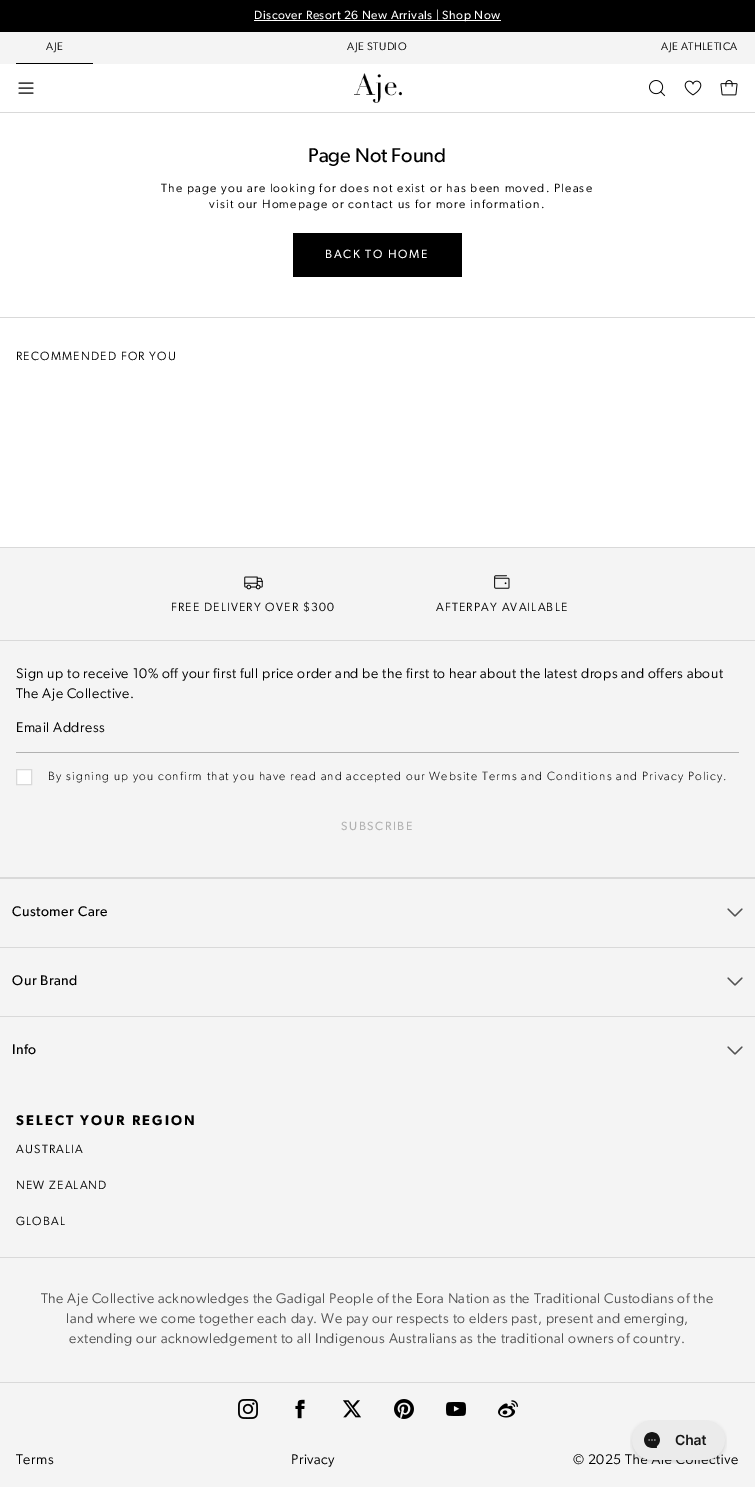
%!PS-Adobe-3.0
%%BoundingBox: 0 0 755 1487
%%LanguageLevel: 3
%%Pages: 1
%%EndComments
%%BeginProlog
/setink { 3 { 255 div 3 1 roll } repeat setrgbcolor } def
/usefont { [ exch dup neg 0 0 3 -1 roll 0 0 ] selectfont } def
/drawtext { setink usefont moveto show } def
/fillbox { setink rectfill } def
/drawimage { 5 dict begin { /h /w /y /x /name } { exch def } forall
  gsave x y translate w h scale
  w h 8 [w 0 0 h 0 0] name (r) file false 3 colorimage grestore end } def
%%EndProlog
%%BeginSetup
<< /PageSize [755 1487] >> setpagedevice
%%EndSetup
%%Page: 1 1
0 1487 translate 1 -1 scale
4 setmiterlimit
0 0 755 1487 255 255 255 fillbox
0 0 755 32 0 0 0 fillbox
254 20 247 1 255 255 255 fillbox
/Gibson-Regular 12 usefont
254 19 moveto 0.5 0 (Discover Resort 26 New Arrivals | Shop Now) ashow
0 112 755 1 217 217 217 fillbox
0 32 755 32 244 244 244 fillbox
/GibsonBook-Regular 11 usefont
0 0 0 setink
46 50 moveto 0.5 0 (AJE) ashow
16 63 77 1 0 0 0 fillbox
347 50 moveto 0.5 0 (AJE STUDIO) ashow
661 50 moveto 0.5 0 (AJE ATHLETICA) ashow
1 setlinecap
1 setlinejoin
19 88 moveto 33 88 lineto 19 83 moveto 33 83 lineto 19 93 moveto 33 93 lineto stroke
(assets/img1.rgb) 354 73 48 30 drawimage
(assets/img2.rgb) 649 80 17 17 drawimage
(assets/img3.rgb) 684 80 18 16 drawimage
(assets/img4.rgb) 720 80 18 16 drawimage
(Page Not Found) 308 162 /Gibson-Regular 20 0 0 0 drawtext
/GibsonBook-Regular 12 usefont
161 192 moveto 1.2 0 (The page you are looking for does not exist or has been moved. Please) ashow
209 208 moveto 1.2 0 (visit our Homepage or contact us for more information.) ashow
293 233 169 44 0 0 0 fillbox
/Gibson-Regular 12 usefont
255 255 255 setink
325 258 moveto 1.6 0 (BACK TO HOME) ashow
0 317 755 1 217 217 217 fillbox
/GibsonBook-Regular 12 usefont
0 0 0 setink
16 360 moveto 1.2 0 (RECOMMENDED FOR YOU) ashow
0 548 755 92 244 244 244 fillbox
0 547 755 1 217 217 217 fillbox
(assets/img5.rgb) 244 576 19 14 drawimage
0 0 0 setink
171 611 moveto 1.2 0 (FREE DELIVERY OVER $300) ashow
(assets/img6.rgb) 494 575 16 14 drawimage
436 611 moveto 1.2 0 (AFTERPAY AVAILABLE) ashow
0 641 755 616 244 244 244 fillbox
0 640 755 1 217 217 217 fillbox
/GibsonBook-Regular 14 usefont
0 0 0 setink
16 678 moveto 0.5 0 (Sign up to receive 10% off your first full price order and be the first to hear about the latest drops and offers about) ashow
16 698 moveto 0.5 0 (The Aje Collective.) ashow
16 732 moveto 0.5 0 (Email Address) ashow
16 752 723 1 177 177 177 fillbox
255 255 255 setink
16.5 769.5 moveto 31.5 769.5 lineto 31.5 784.5 lineto 16.5 784.5 lineto closepath gsave fill grestore
217 217 217 setink
0 setlinecap
0 setlinejoin
stroke
/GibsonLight-Light 12 usefont
0 0 0 setink
48 780 moveto 1.2 0 (By signing up you confirm that you have read and accepted our Website Terms and Conditions and Privacy Policy.) ashow
/Gibson-Regular 12 usefont
177 177 177 setink
341 830 moveto 1.6 0 (SUBSCRIBE) ashow
0 877 755 2 217 217 217 fillbox
/Gibson-Regular 14 usefont
0 0 0 setink
12 916 moveto 0.5 0 (Customer Care) ashow
82 82 82 setink
1.1 setlinewidth
1 setlinecap
1 setlinejoin
742 909 moveto 735 916 lineto 728 909 lineto stroke
0 947 755 1 217 217 217 fillbox
0 0 0 setink
12 985 moveto 0.5 0 (Our Brand) ashow
82 82 82 setink
742 978 moveto 735 985 lineto 728 978 lineto stroke
0 1016 755 1 217 217 217 fillbox
0 0 0 setink
12 1054 moveto 0.5 0 (Info) ashow
82 82 82 setink
742 1047 moveto 735 1054 lineto 728 1047 lineto stroke
/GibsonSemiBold-SemiBold 14 usefont
0 0 0 setink
16 1125 moveto 2.1 0 (SELECT YOUR REGION) ashow
/GibsonBook-Regular 12 usefont
16 1153 moveto 1.2 0 (AUSTRALIA) ashow
16 1189 moveto 1.2 0 (NEW ZEALAND) ashow
16 1225 moveto 1.2 0 (GLOBAL) ashow
0 1258 755 229 244 244 244 fillbox
0 1257 755 1 217 217 217 fillbox
/GibsonBook-Regular 14 usefont
82 82 82 setink
41 1303 moveto 0.5 0 (The Aje Collective acknowledges the Gadigal People of the Eora Nation as the Traditional Custodians of the) ashow
66 1323 moveto 0.5 0 (land where we come together each day. We pay our respects to elders past, present and emerging,) ashow
69 1343 moveto 0.5 0 (extending our acknowledgement to all Indigenous Australians as the traditional owners of country.) ashow
0 1382 755 1 217 217 217 fillbox
(assets/img7.rgb) 238 1399 20 20 drawimage
(assets/img8.rgb) 295 1399 10 20 drawimage
(assets/img9.rgb) 343 1400 18 18 drawimage
(assets/img10.rgb) 394 1399 20 20 drawimage
(assets/img11.rgb) 446 1402 20 14 drawimage
(assets/img12.rgb) 498 1400 20 18 drawimage
0 0 0 setink
16 1464 moveto 0.5 0 (Terms) ashow
291 1464 moveto 0.5 0 (Privacy) ashow
573 1464 moveto 0.5 0 (© 2025 Th) ashow
716 1464 moveto 0.5 0 (tive) ashow
(assets/img13.rgb) 630 1420 97 44 drawimage
showpage
%%EOF
